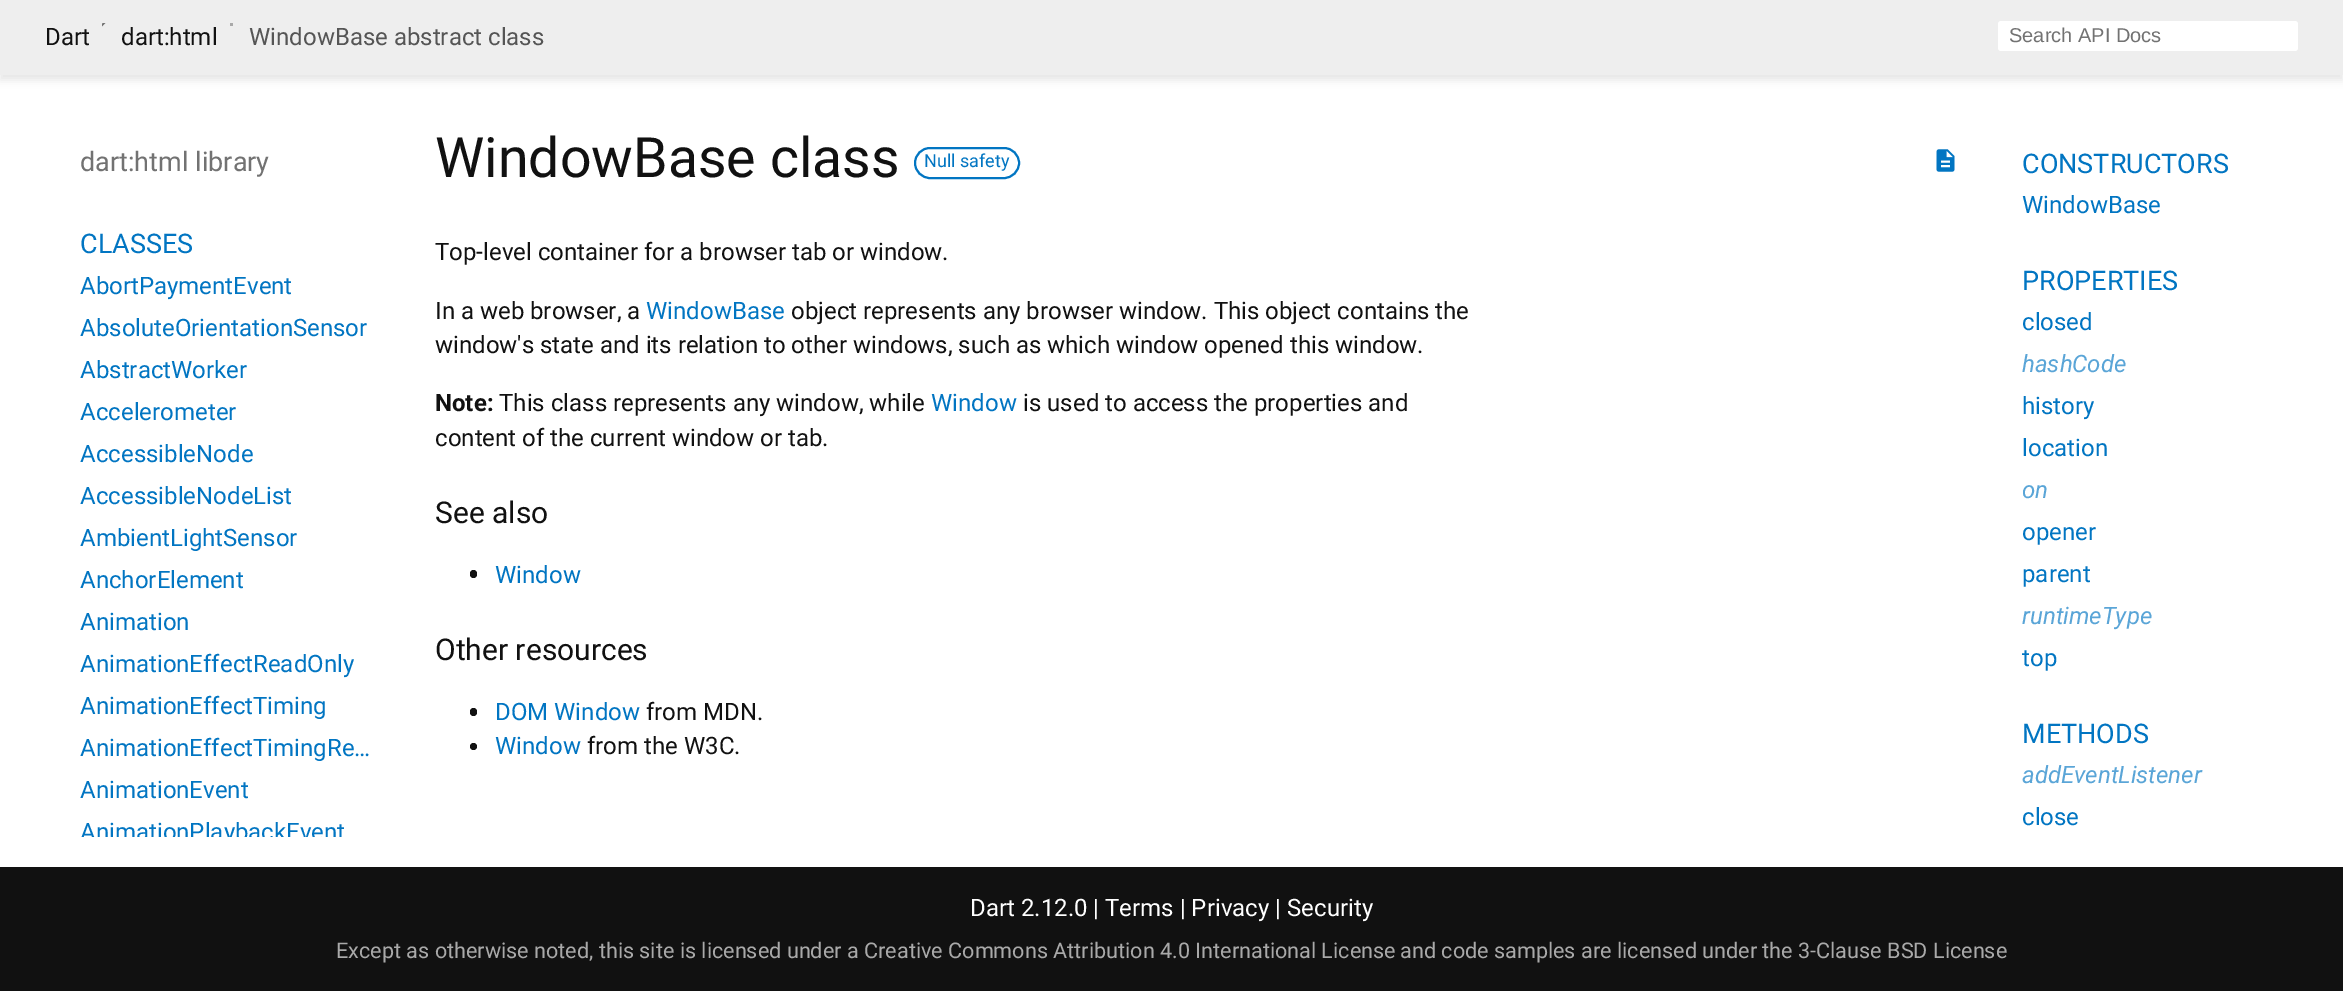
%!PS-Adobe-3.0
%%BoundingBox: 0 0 2343 991
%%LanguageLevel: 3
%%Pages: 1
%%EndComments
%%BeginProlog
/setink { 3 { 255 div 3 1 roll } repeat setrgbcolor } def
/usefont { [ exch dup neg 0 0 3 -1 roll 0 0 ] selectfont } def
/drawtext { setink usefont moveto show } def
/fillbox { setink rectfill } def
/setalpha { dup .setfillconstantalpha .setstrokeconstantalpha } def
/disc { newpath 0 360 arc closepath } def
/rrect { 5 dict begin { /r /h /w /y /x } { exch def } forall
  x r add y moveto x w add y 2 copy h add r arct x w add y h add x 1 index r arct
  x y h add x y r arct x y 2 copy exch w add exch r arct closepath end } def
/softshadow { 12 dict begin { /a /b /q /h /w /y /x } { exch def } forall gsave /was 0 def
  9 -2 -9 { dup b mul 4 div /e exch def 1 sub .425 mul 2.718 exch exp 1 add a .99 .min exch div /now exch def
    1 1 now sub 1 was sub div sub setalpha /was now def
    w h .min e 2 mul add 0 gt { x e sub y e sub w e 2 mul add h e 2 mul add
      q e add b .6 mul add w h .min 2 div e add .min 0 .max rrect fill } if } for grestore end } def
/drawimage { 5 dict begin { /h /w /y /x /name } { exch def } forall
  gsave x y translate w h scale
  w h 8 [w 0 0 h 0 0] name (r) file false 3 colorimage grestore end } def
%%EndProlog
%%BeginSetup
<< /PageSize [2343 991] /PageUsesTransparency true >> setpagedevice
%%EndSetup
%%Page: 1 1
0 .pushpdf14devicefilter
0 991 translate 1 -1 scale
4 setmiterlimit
0 0 2343 991 255 255 255 fillbox
0 0 0 setink
0 5 2343 75 0 4 0.1 softshadow
0 0 2343 75 238 238 238 fillbox
(Dart) 45 45 /Roboto-Regular 24 17 17 17 drawtext
(assets/img1.rgb) 102 23 4 4 drawimage
(dart:html) 121 45 /Roboto-Regular 24 17 17 17 drawtext
230 23 3 3 169 169 169 fillbox
(WindowBase abstract class) 249 45 /Roboto-Regular 24 85 85 85 drawtext
255 255 255 setink
1998 21 300 30 3 rrect fill
(Search API Docs) 2009 42 /LiberationSans-Regular 20 114 114 114 drawtext
(dart:html library) 80 171 /Roboto-Regular 27 114 114 114 drawtext
(CLASSES) 80 253 /Roboto-Regular 27 1 117 194 drawtext
(AbortPaymentEvent) 80 294 /Roboto-Regular 24 1 117 194 drawtext
(AbsoluteOrientationSensor) 80 336 /Roboto-Regular 24 1 117 194 drawtext
(AbstractWorker) 80 378 /Roboto-Regular 24 1 117 194 drawtext
(Accelerometer) 80 420 /Roboto-Regular 24 1 117 194 drawtext
(AccessibleNode) 80 462 /Roboto-Regular 24 1 117 194 drawtext
(AccessibleNodeList) 80 504 /Roboto-Regular 24 1 117 194 drawtext
(AmbientLightSensor) 80 546 /Roboto-Regular 24 1 117 194 drawtext
(AnchorElement) 80 588 /Roboto-Regular 24 1 117 194 drawtext
(Animation) 80 630 /Roboto-Regular 24 1 117 194 drawtext
(AnimationEffectReadOnly) 80 672 /Roboto-Regular 24 1 117 194 drawtext
(AnimationEffectTiming) 80 714 /Roboto-Regular 24 1 117 194 drawtext
(AnimationEffectTimingRe…) 80 756 /Roboto-Regular 24 1 117 194 drawtext
(AnimationEvent) 80 798 /Roboto-Regular 24 1 117 194 drawtext
gsave
75 812 300 25 rectclip
(AnimationPlaybackEvent) 80 840 /Roboto-Regular 24 1 117 194 drawtext
grestore
(WindowBase class) 435 177 /Roboto-Regular 55.5 17 17 17 drawtext
1 117 194 setink
2 setlinewidth
915 148 104 30 15 rrect stroke
(Null safety) 924 167 /Roboto-Regular 18 1 117 194 drawtext
(assets/img2.rgb) 1936 149 19 23 drawimage
(Top-level container for a browser tab or window.) 435 260 /Roboto-Regular 24 17 17 17 drawtext
(In a web browser, a) 435 319 /Roboto-Regular 24 17 17 17 drawtext
(WindowBase) 646 319 /Roboto-Regular 24 1 117 194 drawtext
(object represents any browser window. This object contains the) 791 319 /Roboto-Regular 24 17 17 17 drawtext
(window's state and its relation to other windows, such as which window opened this window.) 435 353 /Roboto-Regular 24 17 17 17 drawtext
(Note:) 435 411 /Roboto-Bold 24 17 17 17 drawtext
(This class represents any window, while) 499 411 /Roboto-Regular 24 17 17 17 drawtext
(Window) 931 411 /Roboto-Regular 24 1 117 194 drawtext
(is used to access the properties and) 1023 411 /Roboto-Regular 24 17 17 17 drawtext
(content of the current window or tab.) 435 446 /Roboto-Regular 24 17 17 17 drawtext
(See also) 435 523 /Roboto-Regular 30 17 17 17 drawtext
470 570 7 8 3.5 rrect fill
(Window) 495 583 /Roboto-Regular 24 1 117 194 drawtext
(Other resources) 435 660 /Roboto-Regular 30 17 17 17 drawtext
470 708 7 8 3.5 rrect fill
(DOM Window) 495 720 /Roboto-Regular 24 1 117 194 drawtext
(from MDN.) 646 720 /Roboto-Regular 24 17 17 17 drawtext
473.5 746.5 3.5 disc fill
(Window) 495 754 /Roboto-Regular 24 1 117 194 drawtext
(from the W3C.) 587 754 /Roboto-Regular 24 17 17 17 drawtext
(CONSTRUCTORS) 2022 173 /Roboto-Regular 27 1 117 194 drawtext
(WindowBase) 2022 213 /Roboto-Regular 24 1 117 194 drawtext
(PROPERTIES) 2022 290 /Roboto-Regular 27 1 117 194 drawtext
(closed) 2022 330 /Roboto-Regular 24 1 117 194 drawtext
(hashCode) 2022 372 /Roboto-Italic 24 90 165 215 drawtext
(history) 2022 414 /Roboto-Regular 24 1 117 194 drawtext
(location) 2022 456 /Roboto-Regular 24 1 117 194 drawtext
(on) 2022 498 /Roboto-Italic 24 90 165 215 drawtext
(opener) 2022 540 /Roboto-Regular 24 1 117 194 drawtext
(parent) 2022 582 /Roboto-Regular 24 1 117 194 drawtext
(runtimeType) 2022 624 /Roboto-Italic 24 90 165 215 drawtext
(top) 2022 666 /Roboto-Regular 24 1 117 194 drawtext
(METHODS) 2022 743 /Roboto-Regular 27 1 117 194 drawtext
(addEventListener) 2022 783 /Roboto-Italic 24 90 165 215 drawtext
(close) 2022 825 /Roboto-Regular 24 1 117 194 drawtext
0 867 2343 124 17 17 17 fillbox
(Dart 2.12.0 | Terms | Privacy | Security) 970 916 /Roboto-Regular 24 255 255 255 drawtext
(Except as otherwise noted, this site is licensed under a) 336 958 /Roboto-Regular 21.6 169 169 169 drawtext
(Creative Commons Attribution 4.0 International License) 864 958 /Roboto-Regular 21.6 169 169 169 drawtext
(and code samples are licensed under the 3-Clause BSD License) 1400 958 /Roboto-Regular 21.6 169 169 169 drawtext
.poppdf14devicefilter showpage
%%EOF
